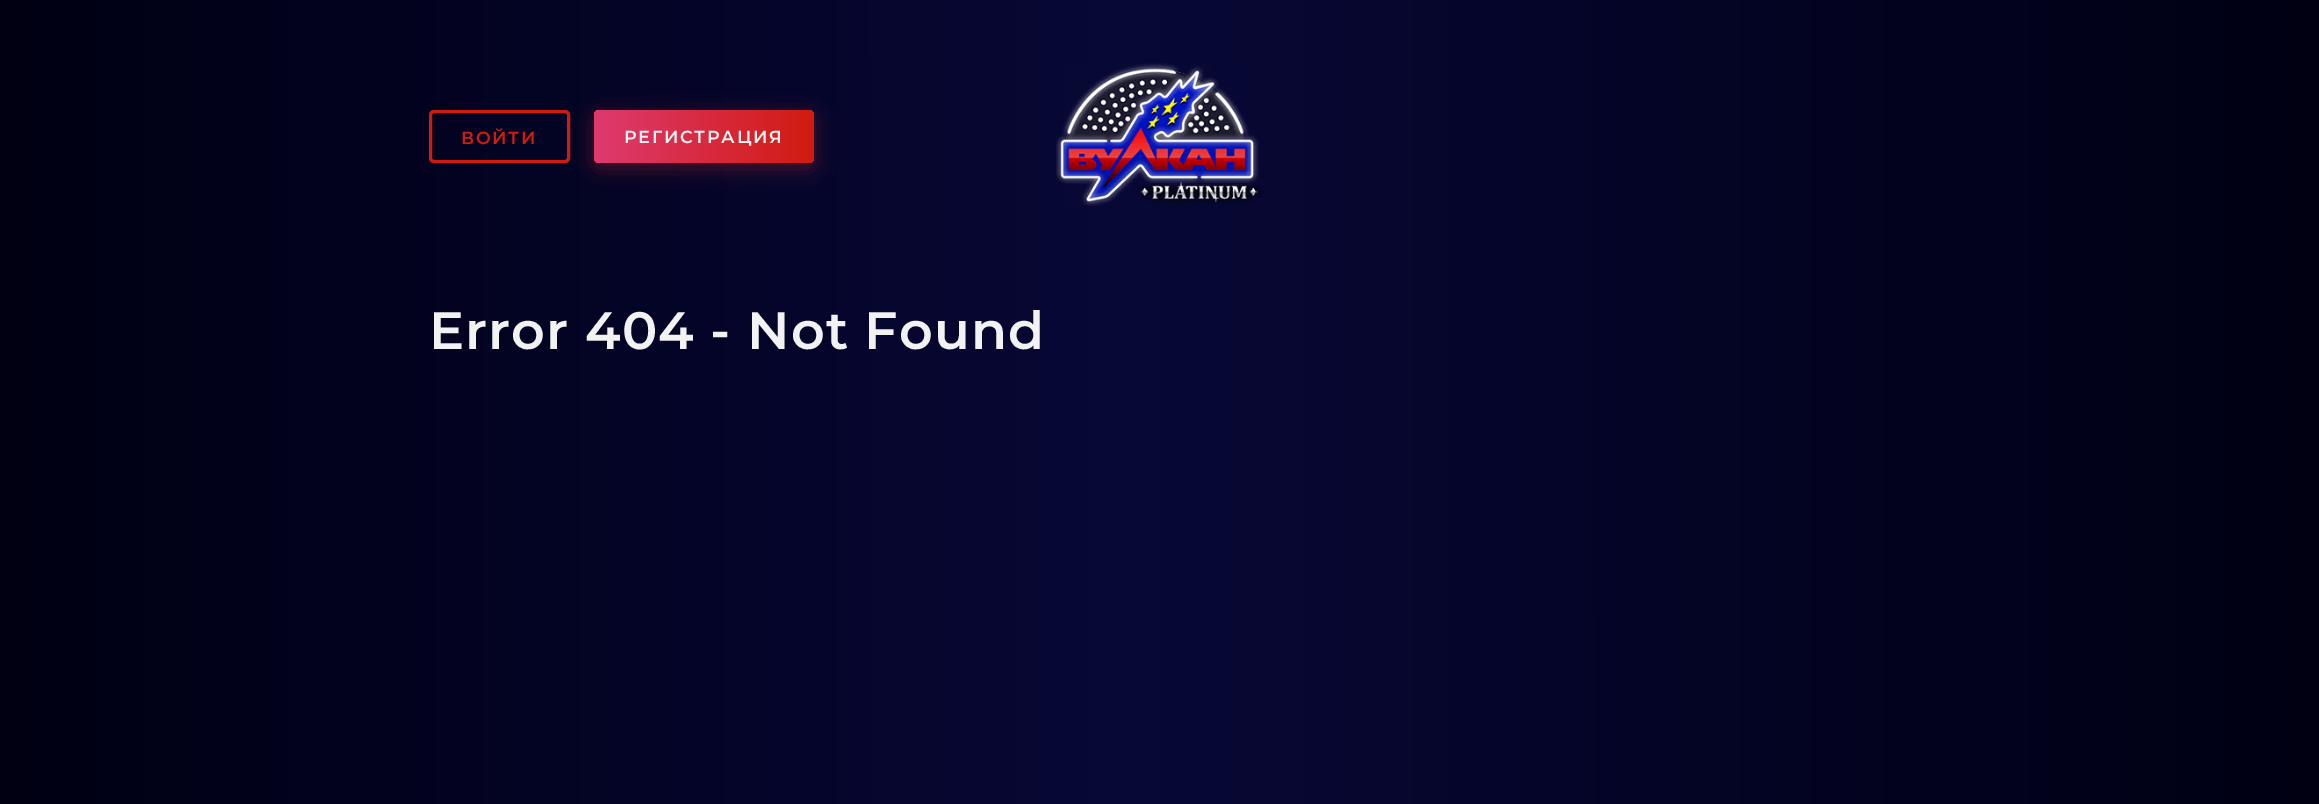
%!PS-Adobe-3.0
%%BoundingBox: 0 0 2319 804
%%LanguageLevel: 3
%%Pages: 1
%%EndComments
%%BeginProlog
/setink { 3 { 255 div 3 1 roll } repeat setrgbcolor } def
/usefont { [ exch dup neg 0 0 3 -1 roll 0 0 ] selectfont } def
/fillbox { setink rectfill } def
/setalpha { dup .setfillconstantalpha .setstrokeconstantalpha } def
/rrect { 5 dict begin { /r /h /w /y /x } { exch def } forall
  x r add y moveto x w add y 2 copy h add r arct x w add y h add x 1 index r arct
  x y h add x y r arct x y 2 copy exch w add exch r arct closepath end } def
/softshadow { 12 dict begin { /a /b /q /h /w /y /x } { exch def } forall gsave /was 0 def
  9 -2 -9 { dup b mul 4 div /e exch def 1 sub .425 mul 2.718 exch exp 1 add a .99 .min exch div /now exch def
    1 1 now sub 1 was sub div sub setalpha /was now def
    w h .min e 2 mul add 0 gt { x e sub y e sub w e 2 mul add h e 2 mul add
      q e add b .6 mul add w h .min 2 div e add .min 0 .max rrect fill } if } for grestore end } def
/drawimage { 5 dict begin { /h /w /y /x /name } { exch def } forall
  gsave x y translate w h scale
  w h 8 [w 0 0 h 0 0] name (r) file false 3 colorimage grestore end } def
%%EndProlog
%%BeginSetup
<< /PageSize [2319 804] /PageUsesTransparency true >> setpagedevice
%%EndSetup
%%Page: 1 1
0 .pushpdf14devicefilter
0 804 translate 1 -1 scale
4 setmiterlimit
0 0 2319 804 255 255 255 fillbox
gsave 0 0 moveto 2319 0 lineto 2319 804 lineto 0 804 lineto closepath clip newpath
<< /ShadingType 2 /ColorSpace /DeviceRGB /Coords [0 588 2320 587] /Extend [true true] /Function << /FunctionType 3 /Domain [0 1] /Functions [<< /FunctionType 2 /Domain [0 1] /C0 [0 0 0.075] /C1 [0.031 0.031 0.212] /N 1 >> << /FunctionType 2 /Domain [0 1] /C0 [0.031 0.031 0.212] /C1 [0 0 0.075] /N 1 >>] /Bounds [0.49] /Encode [0 1 0 1] >> >> shfill grestore
254 54 47 setink
594 115 220 53 5 10 0.3 softshadow
209 27 17 setink
3 setlinewidth
430.5 111.5 138 50 3.5 rrect stroke
/Montserrat-SemiBold 17.5 usefont
461 144 moveto 1.75 0 (ВОЙТИ) ashow
gsave 594 110 220 53 5 rrect clip newpath
<< /ShadingType 2 /ColorSpace /DeviceRGB /Coords [594 136 814 136] /Extend [true true] /Function << /FunctionType 2 /Domain [0 1] /C0 [0.871 0.227 0.435] /C1 [0.82 0.106 0.067] /N 1 >> >> shfill grestore
242 242 242 setink
624 143 moveto 1.75 0 (РЕГИСТРАЦИЯ) ashow
(assets/img1.rgb) 1056 63 205 143 drawimage
/Montserrat-SemiBold 52.5 usefont
429 349 moveto 1.05 0 (Error 404 - Not Found) ashow
.poppdf14devicefilter showpage
%%EOF
